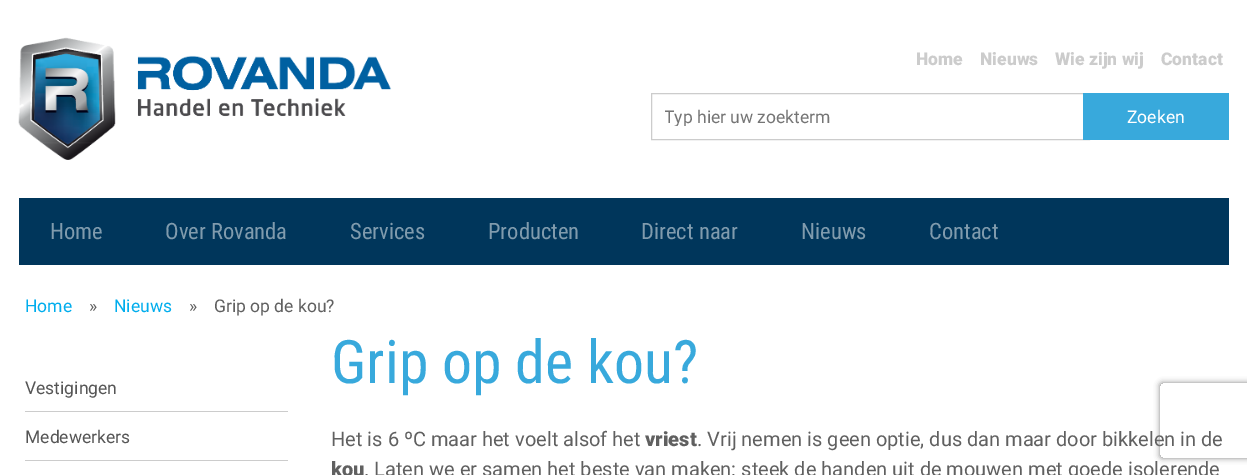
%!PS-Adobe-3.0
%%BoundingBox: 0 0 1247 475
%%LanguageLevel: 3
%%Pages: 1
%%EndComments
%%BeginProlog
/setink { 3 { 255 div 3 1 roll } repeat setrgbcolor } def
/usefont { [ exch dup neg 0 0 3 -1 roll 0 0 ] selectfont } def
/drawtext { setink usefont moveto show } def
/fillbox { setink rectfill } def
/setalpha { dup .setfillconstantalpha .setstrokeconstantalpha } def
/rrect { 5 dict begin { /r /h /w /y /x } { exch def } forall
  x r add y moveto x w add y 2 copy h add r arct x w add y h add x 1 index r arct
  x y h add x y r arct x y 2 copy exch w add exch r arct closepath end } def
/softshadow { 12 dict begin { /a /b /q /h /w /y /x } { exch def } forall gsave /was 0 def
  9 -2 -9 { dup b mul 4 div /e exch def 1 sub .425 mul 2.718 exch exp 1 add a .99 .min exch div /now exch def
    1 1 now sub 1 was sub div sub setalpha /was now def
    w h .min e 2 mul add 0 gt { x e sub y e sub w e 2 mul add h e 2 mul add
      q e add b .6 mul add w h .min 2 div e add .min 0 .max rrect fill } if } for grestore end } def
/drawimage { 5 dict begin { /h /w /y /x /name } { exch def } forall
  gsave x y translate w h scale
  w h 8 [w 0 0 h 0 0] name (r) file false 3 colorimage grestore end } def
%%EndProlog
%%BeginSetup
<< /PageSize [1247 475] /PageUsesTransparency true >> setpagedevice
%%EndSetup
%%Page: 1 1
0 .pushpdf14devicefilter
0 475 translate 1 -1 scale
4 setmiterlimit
0 0 1247 475 255 255 255 fillbox
(assets/img1.rgb) 18 37 374 123 drawimage
(Home) 916 65 /Roboto-Black 17.5 204 204 204 drawtext
(Nieuws) 980 65 /Roboto-Black 17.5 204 204 204 drawtext
(Wie zijn wij) 1055 65 /Roboto-Black 17.5 204 204 204 drawtext
(Contact) 1161 65 /Roboto-Black 17.5 204 204 204 drawtext
651.5 93.5 438 46 rectstroke
gsave
665 106 411 20 rectclip
(Typ hier uw zoekterm) 664 123 /Roboto-Regular 17.5 117 117 117 drawtext
grestore
1083 93 146 47 56 169 220 fillbox
(Zoeken) 1127 123 /Roboto-Regular 17.5 255 255 255 drawtext
19 198 1210 67 0 54 91 fillbox
(Home) 50 239 /RobotoCondensed-Regular 22.5 128 155 173 drawtext
(Over Rovanda) 165 239 /RobotoCondensed-Regular 22.5 128 155 173 drawtext
(Services) 350 239 /RobotoCondensed-Regular 22.5 128 155 173 drawtext
(Producten) 488 239 /RobotoCondensed-Regular 22.5 128 155 173 drawtext
(Direct naar) 641 239 /RobotoCondensed-Regular 22.5 128 155 173 drawtext
(Nieuws) 801 239 /RobotoCondensed-Regular 22.5 128 155 173 drawtext
(Contact) 929 239 /RobotoCondensed-Regular 22.5 128 155 173 drawtext
(Home) 25 312 /Roboto-Regular 17.5 0 173 237 drawtext
(») 89 312 /Roboto-Regular 17.5 96 96 96 drawtext
(Nieuws) 114 312 /Roboto-Regular 17.5 0 173 237 drawtext
(») 189 312 /Roboto-Regular 17.5 96 96 96 drawtext
(Grip op de kou?) 214 312 /Roboto-Regular 17.5 96 96 96 drawtext
25 411 263 1 204 204 204 fillbox
(Vestigingen) 25 394 /Roboto-Regular 17.5 85 85 85 drawtext
25 460 263 1 204 204 204 fillbox
(Medewerkers) 25 443 /Roboto-Regular 17.5 85 85 85 drawtext
(Grip op de kou?) 331 383 /RobotoCondensed-Regular 60 56 169 220 drawtext
(Het is 6 ºC maar het voelt alsof het) 331 446 /Roboto-Regular 20 96 96 96 drawtext
(vriest) 645 446 /Roboto-Black 20 96 96 96 drawtext
(. Vrij nemen is geen optie, dus dan maar door bikkelen in de) 697 446 /Roboto-Regular 20 96 96 96 drawtext
(kou) 331 476 /Roboto-Black 20 96 96 96 drawtext
(. Laten we er samen het beste van maken: steek de handen uit de mouwen met goede isolerende) 364 476 /Roboto-Regular 20 96 96 96 drawtext
gsave
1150 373 moveto 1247 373 lineto 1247 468 lineto 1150 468 lineto closepath 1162.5 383 moveto 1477.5 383 lineto 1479 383 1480 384 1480 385.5 curveto 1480 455.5 lineto 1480 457 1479 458 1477.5 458 curveto 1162.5 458 lineto 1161 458 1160 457 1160 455.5 curveto 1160 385.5 lineto 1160 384 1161 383 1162.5 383 curveto closepath eoclip newpath
128 128 128 setink
1160 383 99 75 2.5 3 1 softshadow
grestore
.poppdf14devicefilter showpage
%%EOF
